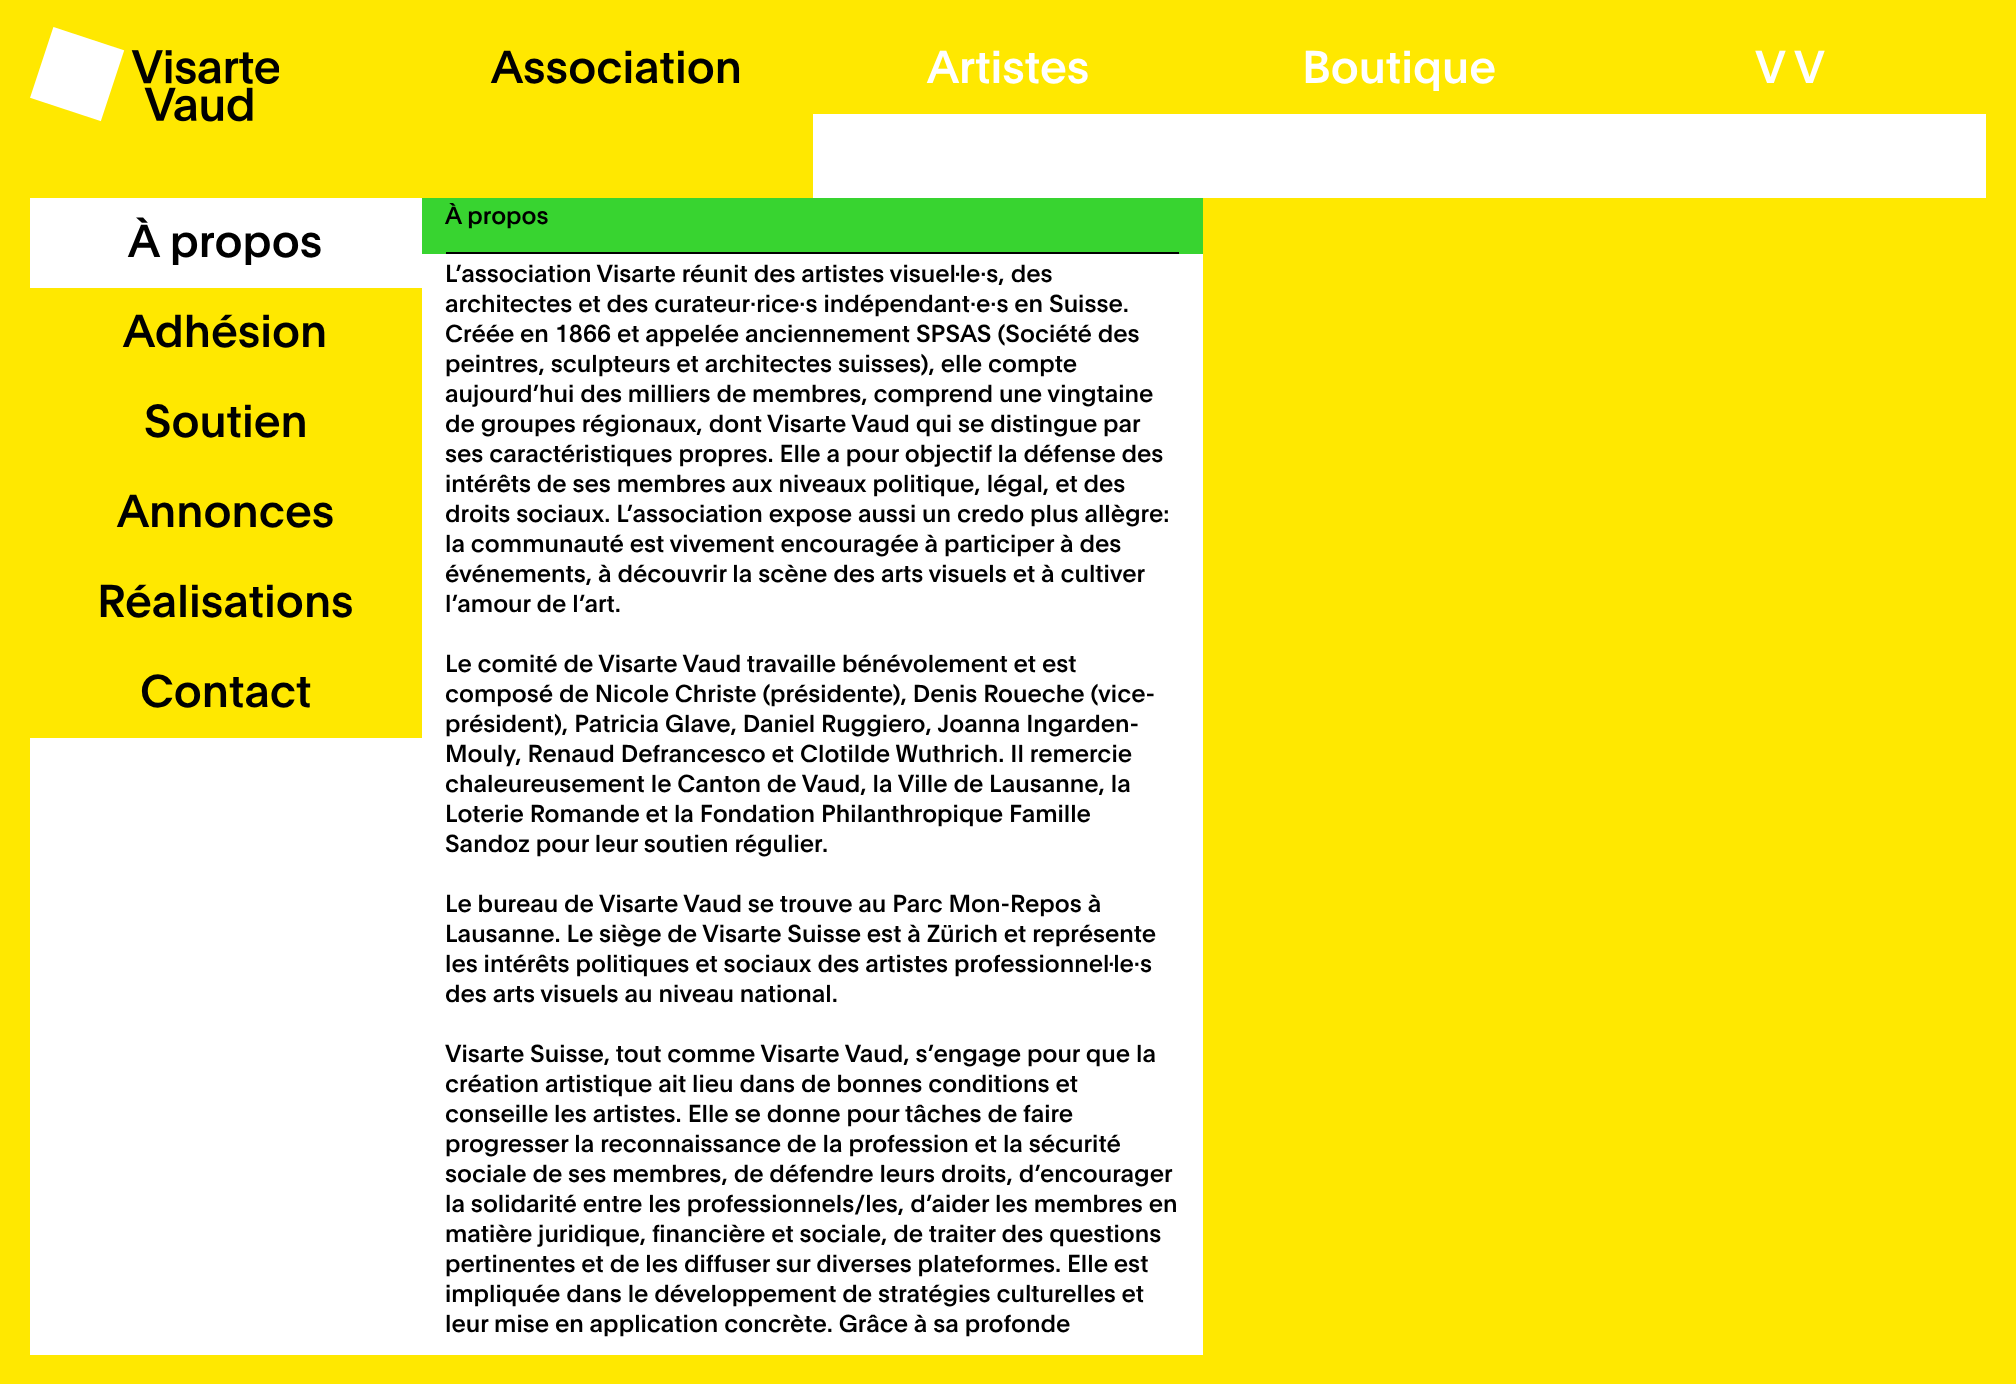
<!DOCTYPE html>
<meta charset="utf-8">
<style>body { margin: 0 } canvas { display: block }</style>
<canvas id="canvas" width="2016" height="1384"></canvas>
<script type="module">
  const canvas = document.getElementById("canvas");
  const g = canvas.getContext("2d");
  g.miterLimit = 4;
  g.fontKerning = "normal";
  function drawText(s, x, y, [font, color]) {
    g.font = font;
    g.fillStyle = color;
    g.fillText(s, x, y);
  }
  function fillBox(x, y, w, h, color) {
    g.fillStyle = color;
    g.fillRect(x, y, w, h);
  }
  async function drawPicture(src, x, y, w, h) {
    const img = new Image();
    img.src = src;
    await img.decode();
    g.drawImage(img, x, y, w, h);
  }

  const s1 = ["500 45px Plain", "#000000"];
  const s2 = ["500 45px Plain", "#FFFFFF"];
  const s3 = ["500 24px Plain", "#000000"];

  fillBox(0, 0, 2016, 1384, "#FFE800");
  await drawPicture("pic1.png", 30, 27, 249, 95);
  drawText("Association", 491, 83, s1);
  fillBox(813, 114, 1173, 84, "#FFFFFF");
  drawText("Artistes", 927, 83, s2);
  drawText("Boutique", 1302, 83, s2);
  drawText("V V", 1755, 83, s2);
  fillBox(30, 198, 392, 1157, "#FFFFFF");
  drawText("À propos", 128, 257, s1);
  fillBox(30, 288, 392, 450, "#FFE800");
  drawText("Adhésion", 123, 347, s1);
  drawText("Soutien", 144, 437, s1);
  drawText("Annonces", 117, 527, s1);
  drawText("Réalisations", 97, 617, s1);
  drawText("Contact", 140, 707, s1);
  fillBox(422, 254, 781, 1101, "#FFFFFF");
  fillBox(422, 198, 781, 56, "#38D430");
  fillBox(446, 252, 733, 2, "#000000");
  drawText("À propos", 445, 224, s3);
  drawText("L’association Visarte réunit des artistes visuel·le·s, des", 445, 282, s3);
  drawText("architectes et des curateur·rice·s indépendant·e·s en Suisse.", 445, 312, s3);
  drawText("Créée en 1866 et appelée anciennement SPSAS (Société des", 445, 342, s3);
  drawText("peintres, sculpteurs et architectes suisses), elle compte", 445, 372, s3);
  drawText("aujourd’hui des milliers de membres, comprend une vingtaine", 445, 402, s3);
  drawText("de groupes régionaux, dont Visarte Vaud qui se distingue par", 445, 432, s3);
  drawText("ses caractéristiques propres. Elle a pour objectif la défense des", 445, 462, s3);
  drawText("intérêts de ses membres aux niveaux politique, légal, et des", 445, 492, s3);
  drawText("droits sociaux. L’association expose aussi un credo plus allègre:", 445, 522, s3);
  drawText("la communauté est vivement encouragée à participer à des", 445, 552, s3);
  drawText("événements, à découvrir la scène des arts visuels et à cultiver", 445, 582, s3);
  drawText("l’amour de l’art.", 445, 612, s3);
  drawText("Le comité de Visarte Vaud travaille bénévolement et est", 445, 672, s3);
  drawText("composé de Nicole Christe (présidente), Denis Roueche (vice-", 445, 702, s3);
  drawText("président), Patricia Glave, Daniel Ruggiero, Joanna Ingarden-", 445, 732, s3);
  drawText("Mouly, Renaud Defrancesco et Clotilde Wuthrich. Il remercie", 445, 762, s3);
  drawText("chaleureusement le Canton de Vaud, la Ville de Lausanne, la", 445, 792, s3);
  drawText("Loterie Romande et la Fondation Philanthropique Famille", 445, 822, s3);
  drawText("Sandoz pour leur soutien régulier.", 445, 852, s3);
  drawText("Le bureau de Visarte Vaud se trouve au Parc Mon-Repos à", 445, 912, s3);
  drawText("Lausanne. Le siège de Visarte Suisse est à Zürich et représente", 445, 942, s3);
  drawText("les intérêts politiques et sociaux des artistes professionnel·le·s", 445, 972, s3);
  drawText("des arts visuels au niveau national.", 445, 1002, s3);
  drawText("Visarte Suisse, tout comme Visarte Vaud, s’engage pour que la", 445, 1062, s3);
  drawText("création artistique ait lieu dans de bonnes conditions et", 445, 1092, s3);
  drawText("conseille les artistes. Elle se donne pour tâches de faire", 445, 1122, s3);
  drawText("progresser la reconnaissance de la profession et la sécurité", 445, 1152, s3);
  drawText("sociale de ses membres, de défendre leurs droits, d’encourager", 445, 1182, s3);
  drawText("la solidarité entre les professionnels/les, d’aider les membres en", 445, 1212, s3);
  drawText("matière juridique, financière et sociale, de traiter des questions", 445, 1242, s3);
  drawText("pertinentes et de les diffuser sur diverses plateformes. Elle est", 445, 1272, s3);
  drawText("impliquée dans le développement de stratégies culturelles et", 445, 1302, s3);
  drawText("leur mise en application concrète. Grâce à sa profonde", 445, 1332, s3);
</script>
